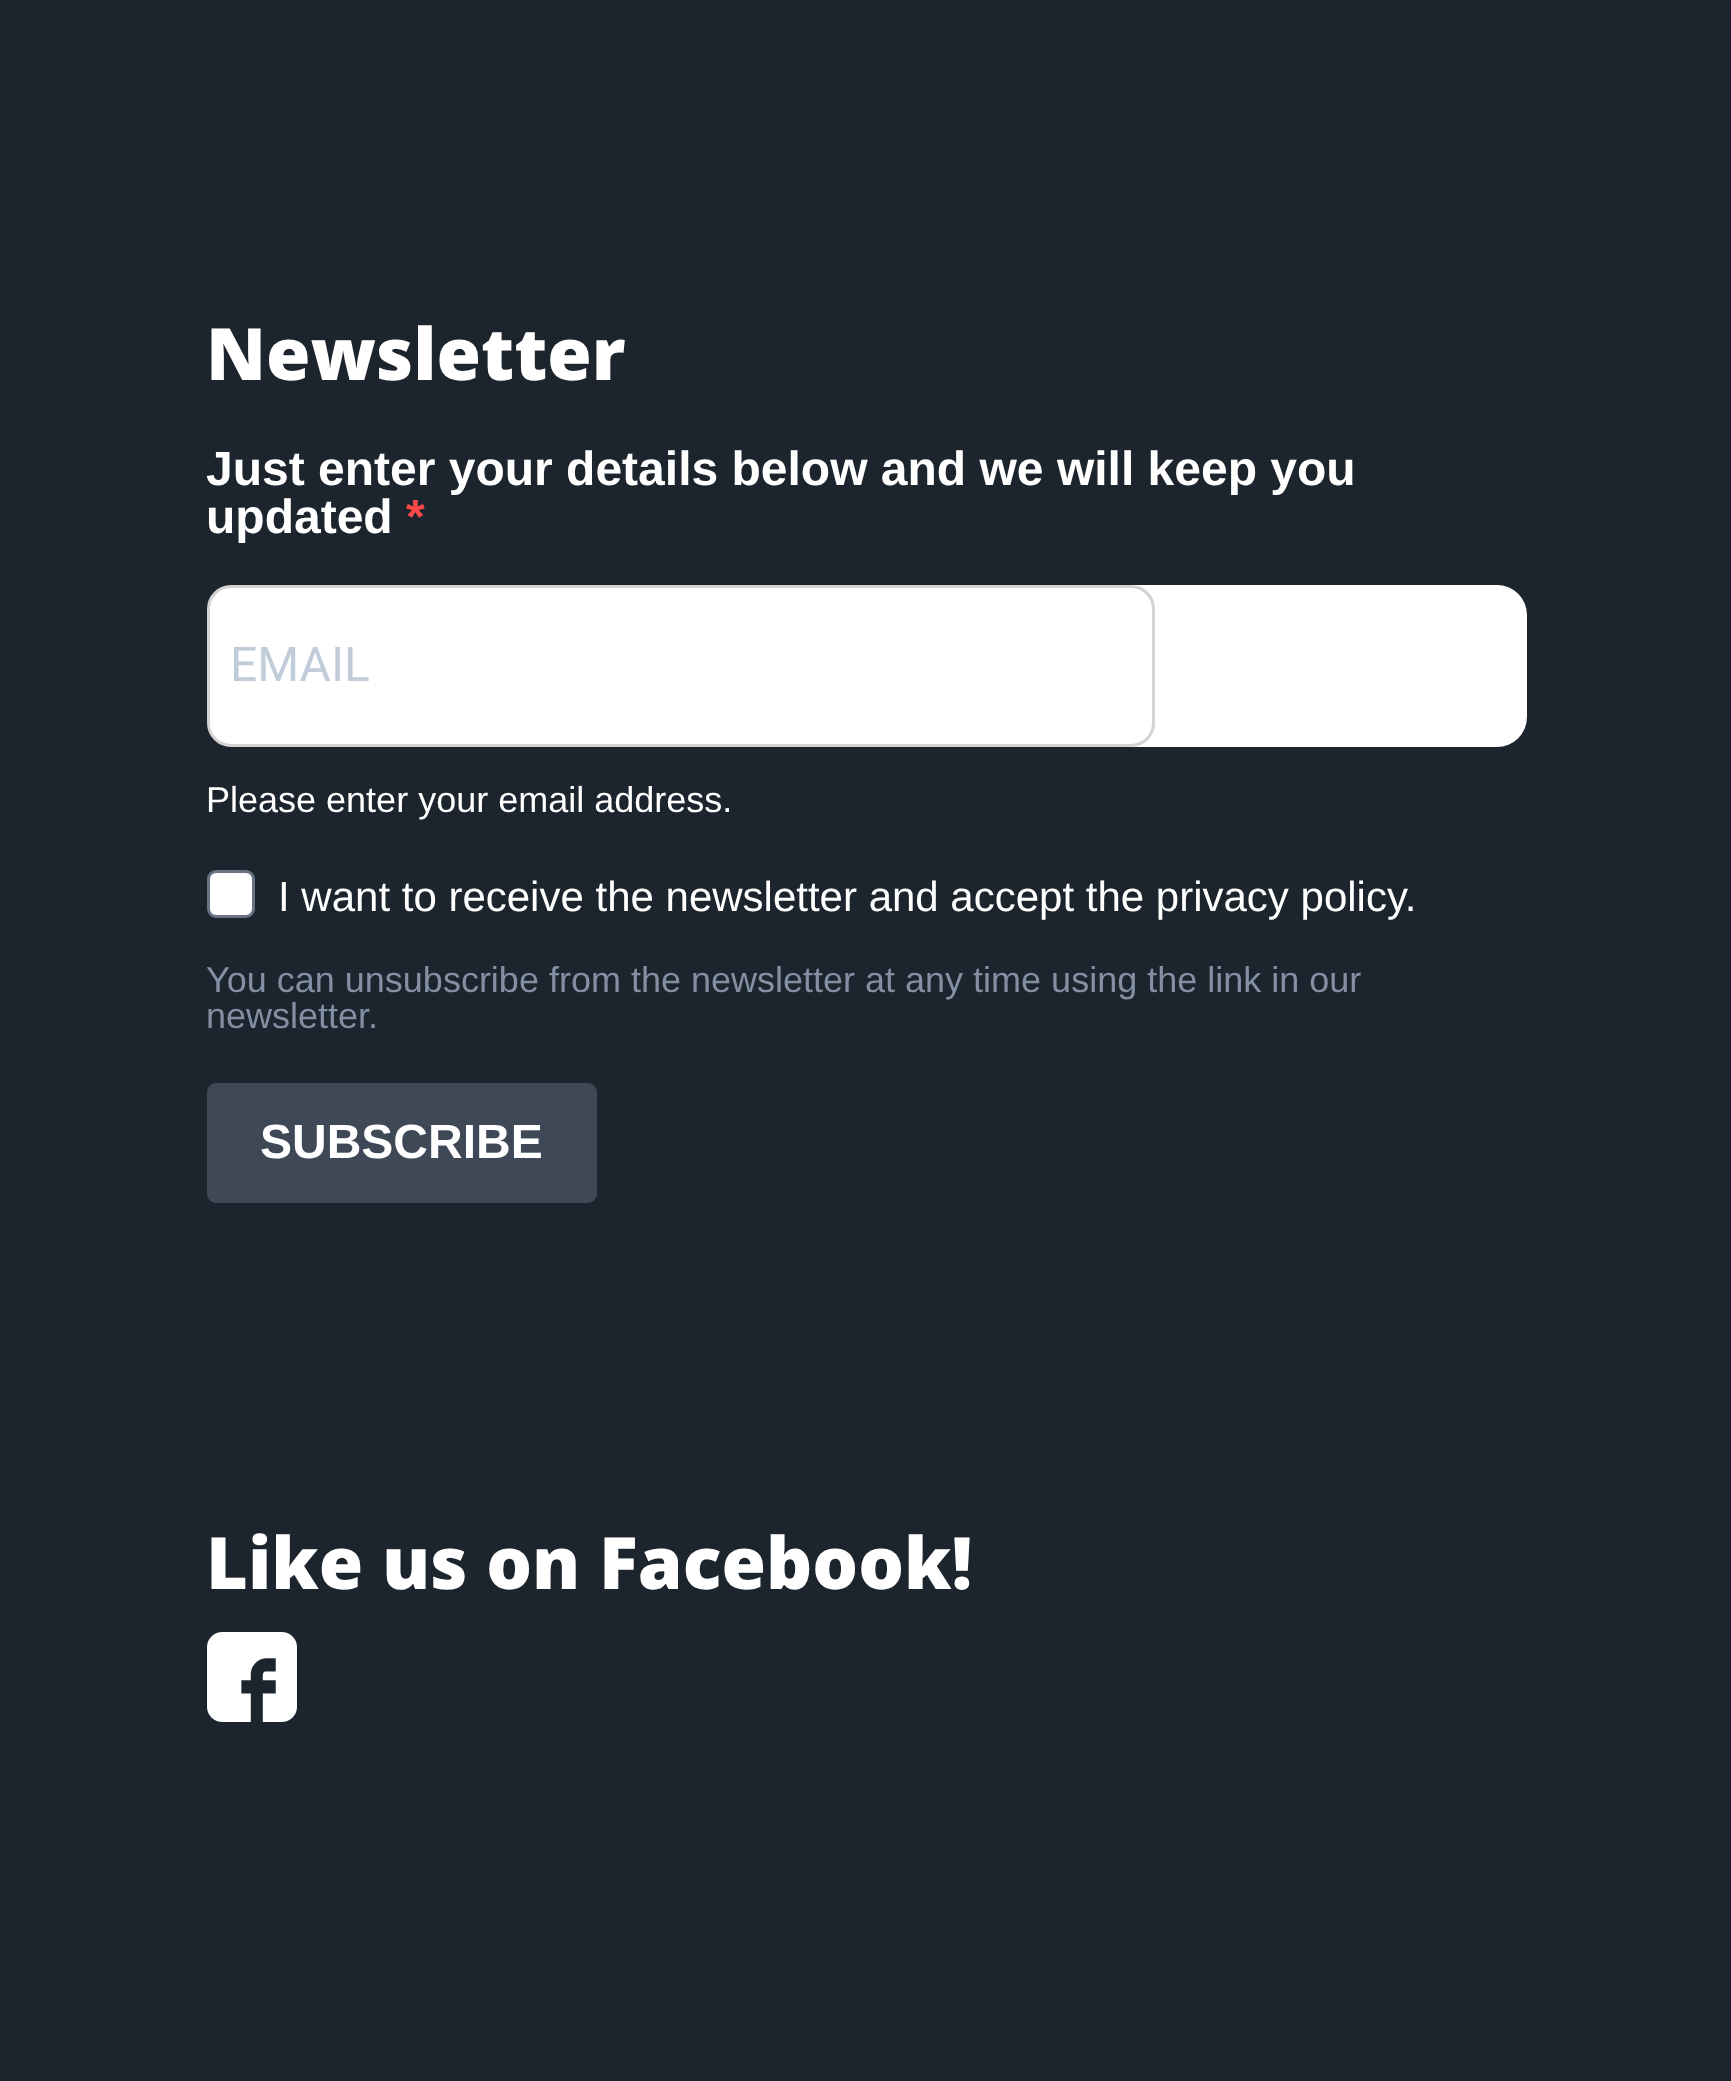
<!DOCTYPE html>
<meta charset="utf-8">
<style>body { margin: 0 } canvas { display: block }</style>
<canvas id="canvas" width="1731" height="2081"></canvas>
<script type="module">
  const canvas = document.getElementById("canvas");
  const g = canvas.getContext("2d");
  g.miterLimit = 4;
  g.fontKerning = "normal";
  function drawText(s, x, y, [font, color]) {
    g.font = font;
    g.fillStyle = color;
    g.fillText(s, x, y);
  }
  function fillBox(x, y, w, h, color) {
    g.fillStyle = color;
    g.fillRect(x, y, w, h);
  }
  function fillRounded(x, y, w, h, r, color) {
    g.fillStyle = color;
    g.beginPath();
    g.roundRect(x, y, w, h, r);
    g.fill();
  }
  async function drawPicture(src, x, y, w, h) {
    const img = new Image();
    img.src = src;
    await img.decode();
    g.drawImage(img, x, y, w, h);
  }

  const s1 = ["800 72px Open Sans", "#FFFFFF"];
  const s2 = ["bold 48px Liberation Sans", "#FFFFFF"];
  const s3 = ["bold 48px Liberation Sans", "#FF4949"];
  const s4 = ["48px Roboto", "#C0CCDA"];
  const s5 = ["36px Liberation Sans", "#FFFFFF"];
  const s6 = ["42px Liberation Sans", "#FFFFFF"];
  const s7 = ["36px Liberation Sans", "#8390A4"];

  fillBox(0, 0, 1731, 2081, "#1C242D");
  drawText("Newsletter", 206, 380, s1);
  drawText("Just enter your details below and we will keep you", 206, 485, s2);
  drawText("updated", 206, 533, s2);
  drawText("*", 406, 533, s3);
  fillRounded(207, 585, 1320, 162, 30, "#FFFFFF");
  g.beginPath();
  g.roundRect(208.5, 586.5, 945, 159, 22.5);
  g.strokeStyle = "#D4D2D2";
  g.lineWidth = 3;
  g.stroke();
  drawText("EMAIL", 230, 681, s4);
  drawText("Please enter your email address.", 206, 812, s5);
  g.beginPath();
  g.roundRect(208.5, 871.5, 45, 45, 7.5);
  g.fill();
  g.strokeStyle = "#687484";
  g.stroke();
  drawText("I want to receive the newsletter and accept the privacy policy.", 278, 911, s6);
  drawText("You can unsubscribe from the newsletter at any time using the link in our", 206, 992, s7);
  drawText("newsletter.", 206, 1028, s7);
  fillRounded(207, 1083, 390, 120, 9, "#3E4857");
  drawText("SUBSCRIBE", 260, 1158, s2);
  drawText("Like us on Facebook!", 206, 1589, s1);
  await drawPicture("pic1.png", 207, 1632, 90, 90);
</script>
